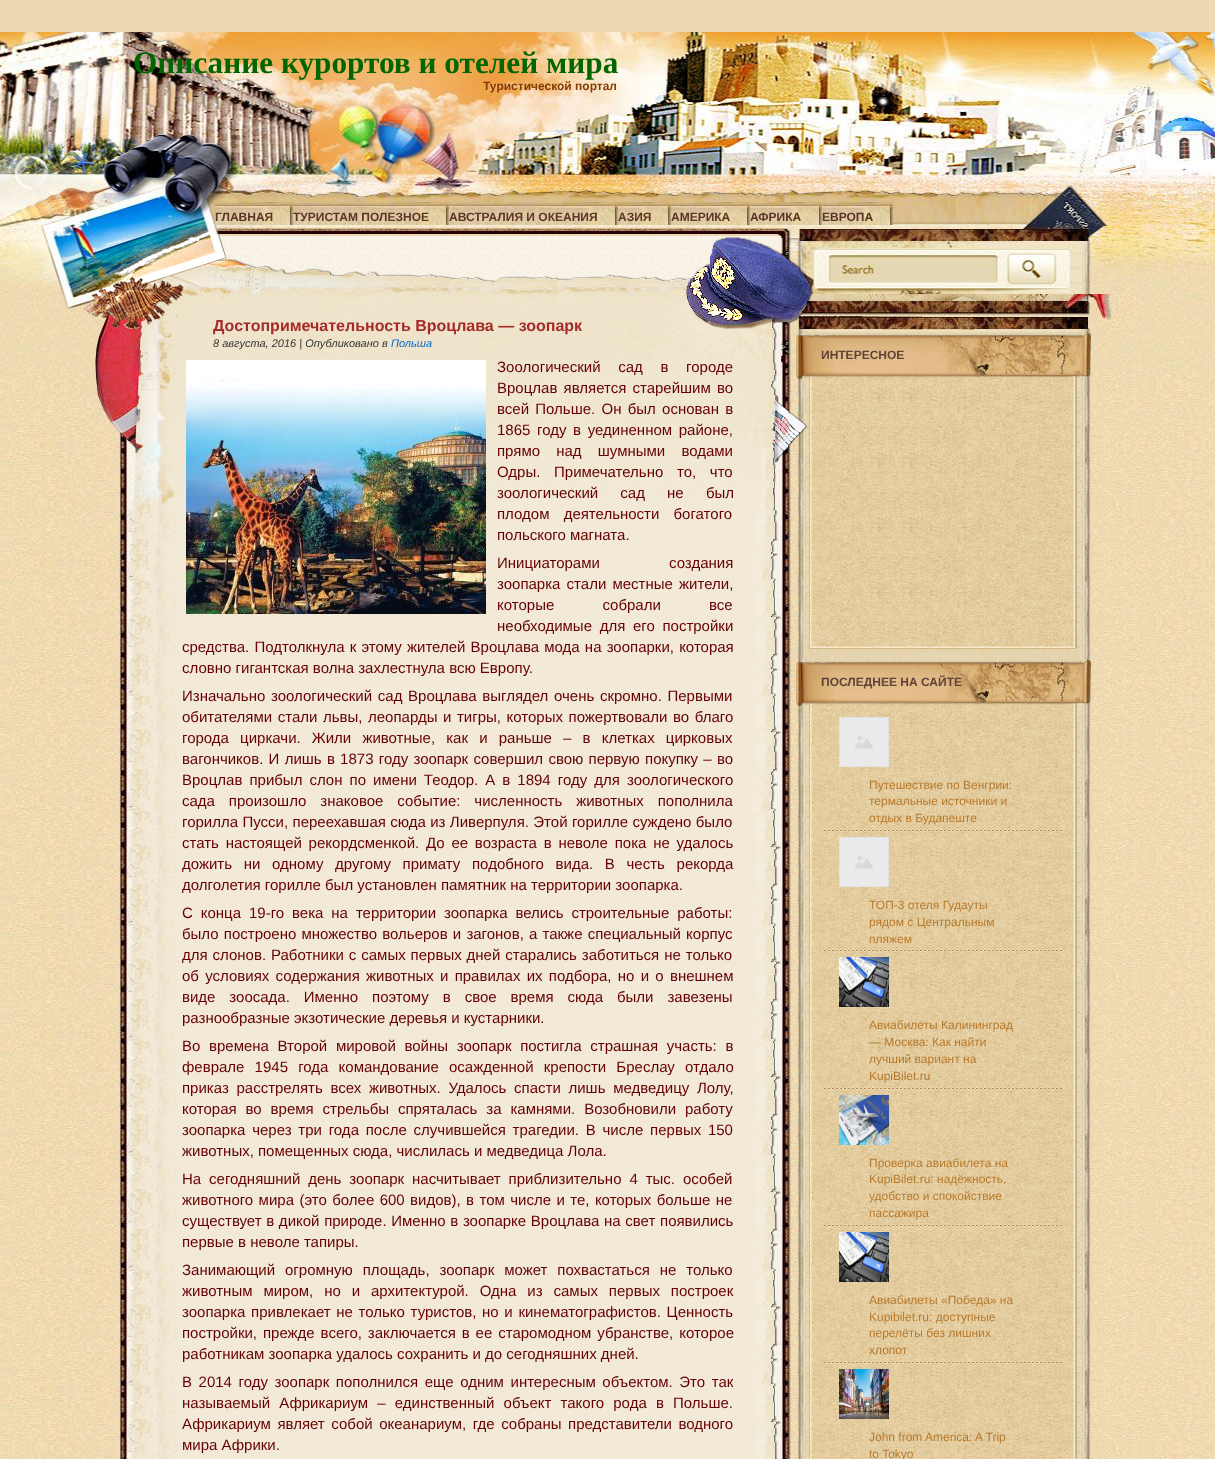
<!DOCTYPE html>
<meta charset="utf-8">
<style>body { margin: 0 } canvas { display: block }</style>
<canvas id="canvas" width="1215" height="1459"></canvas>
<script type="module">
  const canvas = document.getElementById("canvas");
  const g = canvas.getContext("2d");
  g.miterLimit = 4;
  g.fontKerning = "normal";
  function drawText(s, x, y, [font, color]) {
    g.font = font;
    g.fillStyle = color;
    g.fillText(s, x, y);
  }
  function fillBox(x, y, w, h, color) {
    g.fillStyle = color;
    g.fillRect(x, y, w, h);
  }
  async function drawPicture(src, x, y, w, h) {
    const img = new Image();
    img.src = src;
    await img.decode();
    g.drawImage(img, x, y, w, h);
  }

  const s1 = ["bold 31.25px Liberation Serif", "#006600"];
  const s2 = ["bold 12px Liberation Sans", "#823A00"];
  const s3 = ["bold 12px Liberation Sans", "#5E3425"];
  const s4 = ["bold 16px Liberation Sans", "#A52A2A"];
  const s5 = ["italic 11px Liberation Sans", "#333333"];
  const s6 = ["italic 11px Liberation Sans", "#0066CC"];
  const s7 = ["15px Liberation Sans", "#660000"];
  const s8 = ["bold 12px Liberation Sans", "#5E4337"];
  const s9 = ["12px Liberation Sans", "#B87A2D"];

  fillBox(0, 0, 1215, 1459, "#ECD9B1");
  await drawPicture("pic1.png", 0, 373, 1215, 1086);
  await drawPicture("pic2.png", 0, 32, 1215, 341);
  drawText("Описание курортов и отелей мира", 133, 73, s1);
  drawText("Туристической портал", 483, 90, s2);
  await drawPicture("pic3.png", 215, 202, 78, 23);
  drawText("ГЛАВНАЯ", 215, 221, s3);
  await drawPicture("pic4.png", 293, 202, 156, 23);
  drawText("ТУРИСТАМ ПОЛЕЗНОЕ", 293, 221, s3);
  await drawPicture("pic5.png", 449, 202, 169, 23);
  drawText("АВСТРАЛИЯ И ОКЕАНИЯ", 449, 221, s3);
  await drawPicture("pic6.png", 618, 202, 53, 23);
  drawText("АЗИЯ", 618, 221, s3);
  await drawPicture("pic7.png", 671, 202, 79, 23);
  drawText("АМЕРИКА", 671, 221, s3);
  await drawPicture("pic8.png", 750, 202, 72, 23);
  drawText("АФРИКА", 750, 221, s3);
  await drawPicture("pic9.png", 822, 202, 71, 23);
  drawText("ЕВРОПА", 822, 221, s3);
  await drawPicture("pic10.png", 127, 510, 654, 949);
  await drawPicture("pic12.png", 95, 236, 694, 274);
  drawText("Достопримечательность Вроцлава — зоопарк", 213, 331, s4);
  await drawPicture("pic11.png", 96, 235, 131, 94);
  drawText("8 августа, 2016 | Опубликовано в", 213, 347, s5);
  drawText("Польша", 391, 347, s6);
  await drawPicture("pic13.png", 186, 360, 300, 254);
  g.wordSpacing = "13.5px";
  drawText("Зоологический сад в городе", 497, 372, s7);
  g.wordSpacing = "2px";
  drawText("Вроцлав является старейшим во", 497, 393, s7);
  g.wordSpacing = "2.1px";
  drawText("всей Польше. Он был основан в", 497, 414, s7);
  g.wordSpacing = "2.5px";
  drawText("1865 году в уединенном районе,", 497, 435, s7);
  g.wordSpacing = "12px";
  drawText("прямо над шумными водами", 497, 456, s7);
  g.wordSpacing = "9.5px";
  drawText("Одры. Примечательно то, что", 497, 477, s7);
  g.wordSpacing = "18px";
  drawText("зоологический сад не был", 497, 498, s7);
  g.wordSpacing = "10px";
  drawText("плодом деятельности богатого", 497, 519, s7);
  g.wordSpacing = "0px";
  drawText("польского магната.", 497, 540, s7);
  g.wordSpacing = "65px";
  drawText("Инициаторами создания", 497, 568, s7);
  g.wordSpacing = "2px";
  drawText("зоопарка стали местные жители,", 497, 589, s7);
  g.wordSpacing = "44px";
  drawText("которые собрали все", 497, 610, s7);
  g.wordSpacing = "3.5px";
  drawText("необходимые для его постройки", 497, 631, s7);
  g.wordSpacing = "1px";
  drawText("средства. Подтолкнула к этому жителей Вроцлава мода на зоопарки, которая", 182, 652, s7);
  g.wordSpacing = "0px";
  drawText("словно гигантская волна захлестнула всю Европу.", 182, 673, s7);
  g.wordSpacing = "1.5px";
  drawText("Изначально зоологический сад Вроцлава выглядел очень скромно. Первыми", 182, 701, s7);
  g.wordSpacing = "1.4px";
  drawText("обитателями стали львы, леопарды и тигры, которых пожертвовали во благо", 182, 722, s7);
  g.wordSpacing = "7px";
  drawText("города циркачи. Жили животные, как и раньше – в клетках цирковых", 182, 743, s7);
  g.wordSpacing = "1.1px";
  drawText("вагончиков. И лишь в 1873 году зоопарк совершил свою первую покупку – во", 182, 764, s7);
  g.wordSpacing = "2.9px";
  drawText("Вроцлав прибыл слон по имени Теодор. А в 1894 году для зоологического", 182, 785, s7);
  g.wordSpacing = "9.75px";
  drawText("сада произошло знаковое событие: численность животных пополнила", 182, 806, s7);
  g.wordSpacing = "0.25px";
  drawText("горилла Пусси, переехавшая сюда из Ливерпуля. Этой горилле суждено было", 182, 827, s7);
  g.wordSpacing = "2.6px";
  drawText("стать настоящей рекордсменкой. До ее возраста в неволе пока не удалось", 182, 848, s7);
  g.wordSpacing = "7.5px";
  drawText("дожить ни одному другому примату подобного вида. В честь рекорда", 182, 869, s7);
  g.wordSpacing = "0px";
  drawText("долголетия горилле был установлен памятник на территории зоопарка.", 182, 890, s7);
  g.wordSpacing = "3.75px";
  drawText("С конца 19-го века на территории зоопарка велись строительные работы:", 182, 918, s7);
  g.wordSpacing = "1px";
  drawText("было построено множество вольеров и загонов, а также специальный корпус", 182, 939, s7);
  g.wordSpacing = "0.75px";
  drawText("для слонов. Работники с самых первых дней старались заботиться не только", 182, 960, s7);
  g.wordSpacing = "2.1px";
  drawText("об условиях содержания животных и правилах их подбора, но и о внешнем", 182, 981, s7);
  g.wordSpacing = "9.75px";
  drawText("виде зоосада. Именно поэтому в свое время сюда были завезены", 182, 1002, s7);
  g.wordSpacing = "0px";
  drawText("разнообразные экзотические деревья и кустарники.", 182, 1023, s7);
  g.wordSpacing = "4.5px";
  drawText("Во времена Второй мировой войны зоопарк постигла страшная участь: в", 182, 1051, s7);
  g.wordSpacing = "6px";
  drawText("феврале 1945 года командование осажденной крепости Бреслау отдало", 182, 1072, s7);
  g.wordSpacing = "3.5px";
  drawText("приказ расстрелять всех животных. Удалось спасти лишь медведицу Лолу,", 182, 1093, s7);
  g.wordSpacing = "4.75px";
  drawText("которая во время стрельбы спряталась за камнями. Возобновили работу", 182, 1114, s7);
  g.wordSpacing = "2.6px";
  drawText("зоопарка через три года после случившейся трагедии. В числе первых 150", 182, 1135, s7);
  g.wordSpacing = "0px";
  drawText("животных, помещенных сюда, числилась и медведица Лола.", 182, 1156, s7);
  g.wordSpacing = "3.75px";
  drawText("На сегодняшний день зоопарк насчитывает приблизительно 4 тыс. особей", 182, 1184, s7);
  g.wordSpacing = "1.25px";
  drawText("животного мира (это более 600 видов), в том числе и те, которых больше не", 182, 1205, s7);
  g.wordSpacing = "0.5px";
  drawText("существует в дикой природе. Именно в зоопарке Вроцлава на свет появились", 182, 1226, s7);
  g.wordSpacing = "0px";
  drawText("первые в неволе тапиры.", 182, 1247, s7);
  g.wordSpacing = "5.75px";
  drawText("Занимающий огромную площадь, зоопарк может похвастаться не только", 182, 1275, s7);
  g.wordSpacing = "6.75px";
  drawText("животным миром, но и архитектурой. Одна из самых первых построек", 182, 1296, s7);
  g.wordSpacing = "1.5px";
  drawText("зоопарка привлекает не только туристов, но и кинематографистов. Ценность", 182, 1317, s7);
  g.wordSpacing = "1.75px";
  drawText("постройки, прежде всего, заключается в ее старомодном убранстве, которое", 182, 1338, s7);
  g.wordSpacing = "0px";
  drawText("работникам зоопарка удалось сохранить и до сегодняшних дней.", 182, 1359, s7);
  g.wordSpacing = "2.4px";
  drawText("В 2014 году зоопарк пополнился еще одним интересным объектом. Это так", 182, 1387, s7);
  g.wordSpacing = "5px";
  drawText("называемый Африкариум – единственный объект такого рода в Польше.", 182, 1408, s7);
  g.wordSpacing = "2.4px";
  drawText("Африкариум являет собой океанариум, где собраны представители водного", 182, 1429, s7);
  g.wordSpacing = "0px";
  drawText("мира Африки.", 182, 1450, s7);
  await drawPicture("pic15.png", 799, 294, 341, 35);
  await drawPicture("pic16.png", 806, 332, 274, 1127);
  await drawPicture("pic18.png", 796, 332, 295, 47);
  await drawPicture("pic14.png", 788, 236, 25, 212);
  await drawPicture("pic17.png", 807, 635, 273, 24);
  drawText("ИНТЕРЕСНОЕ", 821, 359, s8);
  await drawPicture("pic19.png", 796, 659, 295, 47);
  drawText("ПОСЛЕДНЕЕ НА САЙТЕ", 821, 686, s8);
  await drawPicture("pic20.png", 824, 829, 239, 3);
  await drawPicture("pic21.png", 839, 717, 50, 50);
  drawText("Путешествие по Венгрии:", 869, 789, s9);
  drawText("термальные источники и", 869, 805, s9);
  drawText("отдых в Будапеште", 869, 822, s9);
  await drawPicture("pic20.png", 824, 949, 239, 3);
  await drawPicture("pic21.png", 839, 837, 50, 50);
  drawText("ТОП-3 отеля Гудауты", 869, 909, s9);
  drawText("рядом с Центральным", 869, 926, s9);
  drawText("пляжем", 869, 943, s9);
  await drawPicture("pic20.png", 824, 1087, 239, 3);
  await drawPicture("pic22.png", 839, 957, 50, 50);
  drawText("Авиабилеты Калининград", 869, 1029, s9);
  drawText("— Москва: Как найти", 869, 1046, s9);
  drawText("лучший вариант на", 869, 1063, s9);
  drawText("KupiBilet.ru", 869, 1080, s9);
  await drawPicture("pic20.png", 824, 1224, 239, 3);
  await drawPicture("pic23.png", 839, 1095, 50, 50);
  drawText("Проверка авиабилета на", 869, 1167, s9);
  drawText("KupiBilet.ru: надёжность,", 869, 1183, s9);
  drawText("удобство и спокойствие", 869, 1200, s9);
  drawText("пассажира", 869, 1217, s9);
  await drawPicture("pic20.png", 824, 1361, 239, 3);
  await drawPicture("pic24.png", 839, 1232, 50, 50);
  drawText("Авиабилеты «Победа» на", 869, 1304, s9);
  drawText("Kupibilet.ru: доступные", 869, 1321, s9);
  drawText("перелёты без лишних", 869, 1337, s9);
  drawText("хлопот", 869, 1354, s9);
  await drawPicture("pic25.png", 839, 1369, 50, 50);
  drawText("John from America: A Trip", 869, 1441, s9);
  drawText("to Tokyo", 869, 1458, s9);
</script>
